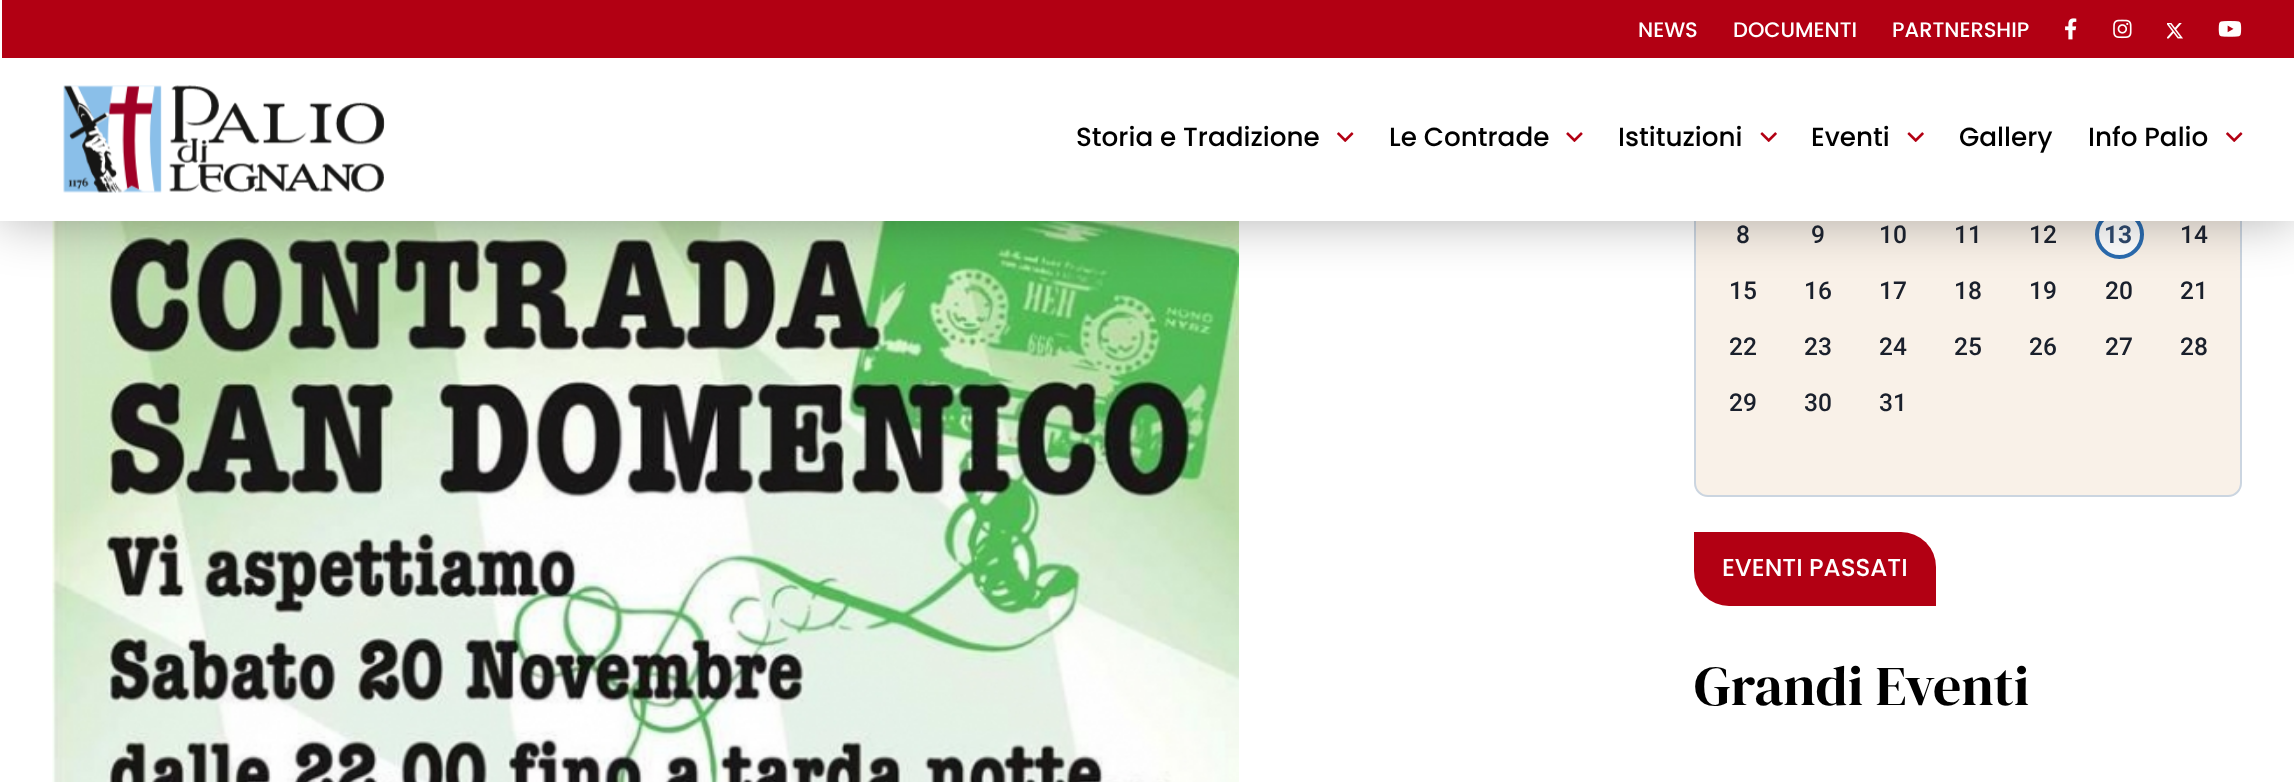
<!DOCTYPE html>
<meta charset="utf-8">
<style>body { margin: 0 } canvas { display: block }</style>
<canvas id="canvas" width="2294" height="782"></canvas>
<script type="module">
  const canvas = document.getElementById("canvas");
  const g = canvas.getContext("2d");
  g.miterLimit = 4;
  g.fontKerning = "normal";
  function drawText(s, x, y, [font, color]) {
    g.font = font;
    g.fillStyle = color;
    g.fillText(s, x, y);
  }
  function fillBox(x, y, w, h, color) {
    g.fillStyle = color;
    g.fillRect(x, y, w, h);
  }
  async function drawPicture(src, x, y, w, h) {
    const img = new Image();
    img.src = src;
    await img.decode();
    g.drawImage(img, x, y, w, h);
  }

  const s1 = ["500 21px Poppins", "#FFFFFF"];
  const s2 = ["500 26.25px Poppins", "#000000"];
  const s3 = ["500 24.5px Roboto", "#1A202C"];
  const s4 = ["bold 24.5px Roboto", "#2A4365"];
  const s5 = ["500 24.5px Poppins", "#FFFFFF"];
  const s6 = ["56px DM Serif Display", "#000000"];

  fillBox(0, 0, 2294, 782, "#FFFFFF");
  await drawPicture("pic9.png", 52, 221, 1187, 561);
  g.fillStyle = "#F9F1E8";
  g.beginPath();
  g.roundRect(1695, 29, 546, 467, 13);
  g.fill();
  g.strokeStyle = "#CBD5E0";
  g.lineWidth = 2;
  g.stroke();
  g.fillStyle = "#FFFFFF";
  g.beginPath();
  g.arc(2119.5, 234.5, 22.5, 0, Math.PI * 2);
  g.fill();
  g.strokeStyle = "#2B6CB0";
  g.lineWidth = 4;
  g.stroke();
  g.fillStyle = "rgba(0, 0, 0, 0.3)";
  g.filter = "blur(26px)";
  g.beginPath();
  g.rect(0, 0, 2294, 221);
  g.fill();
  g.filter = "none";
  fillBox(0, 0, 2294, 221, "#FFFFFF");
  fillBox(2, 0, 2292, 58, "#B20013");
  drawText("NEWS", 1638, 37, s1);
  drawText("DOCUMENTI", 1733, 37, s1);
  drawText("PARTNERSHIP", 1892, 37, s1);
  await drawPicture("pic1.png", 2065, 18, 12, 22);
  await drawPicture("pic2.png", 2113, 19, 19, 20);
  await drawPicture("pic3.png", 2167, 23, 16, 16);
  await drawPicture("pic4.png", 2218, 21, 24, 16);
  await drawPicture("pic5.png", 63, 85, 322, 108);
  drawText("Storia e Tradizione", 1076, 146, s2);
  await drawPicture("pic6.png", 1337, 132, 17, 10);
  drawText("Le Contrade", 1389, 146, s2);
  await drawPicture("pic7.png", 1566, 132, 17, 10);
  drawText("Istituzioni", 1618, 146, s2);
  await drawPicture("pic8.png", 1760, 132, 17, 10);
  drawText("Eventi", 1811, 146, s2);
  await drawPicture("pic8.png", 1907, 132, 17, 10);
  drawText("Gallery", 1959, 146, s2);
  drawText("Info Palio", 2088, 146, s2);
  await drawPicture("pic6.png", 2226, 132, 17, 10);
  drawText("8", 1736, 243, s3);
  drawText("9", 1811, 243, s3);
  drawText("10", 1879, 243, s3);
  drawText("11", 1954, 243, s3);
  drawText("12", 2029, 243, s3);
  drawText("13", 2104, 243, s4);
  drawText("14", 2180, 243, s3);
  drawText("15", 1729, 299, s3);
  drawText("16", 1804, 299, s3);
  drawText("17", 1879, 299, s3);
  drawText("18", 1954, 299, s3);
  drawText("19", 2029, 299, s3);
  drawText("20", 2105, 299, s3);
  drawText("21", 2180, 299, s3);
  drawText("22", 1729, 355, s3);
  drawText("23", 1804, 355, s3);
  drawText("24", 1879, 355, s3);
  drawText("25", 1954, 355, s3);
  drawText("26", 2029, 355, s3);
  drawText("27", 2105, 355, s3);
  drawText("28", 2180, 355, s3);
  drawText("29", 1729, 411, s3);
  drawText("30", 1804, 411, s3);
  drawText("31", 1879, 411, s3);
  g.fillStyle = "#B20013";
  g.beginPath();
  g.roundRect(1694, 532, 242, 74, [0, 35, 0, 35]);
  g.fill();
  drawText("EVENTI PASSATI", 1722, 576, s5);
  drawText("Grandi Eventi", 1694, 705, s6);
</script>
